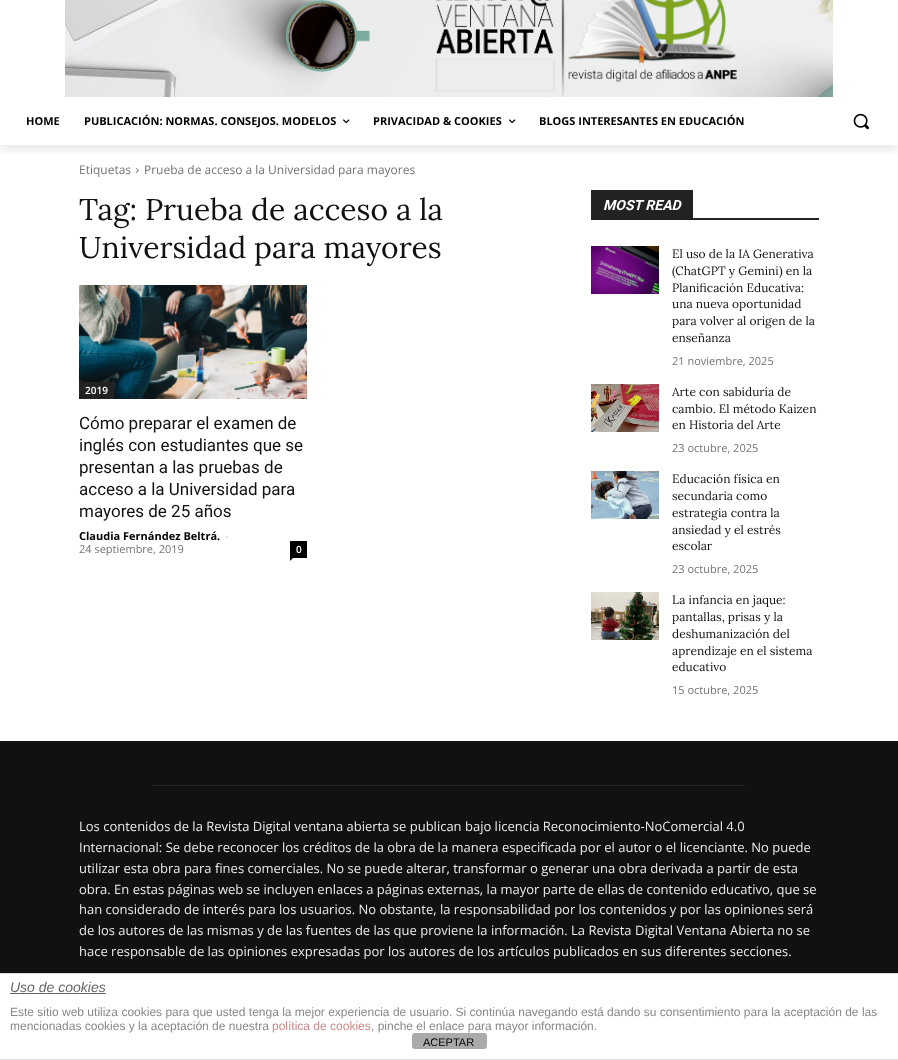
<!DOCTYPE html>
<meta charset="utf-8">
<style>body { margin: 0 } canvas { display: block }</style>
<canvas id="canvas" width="898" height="1060"></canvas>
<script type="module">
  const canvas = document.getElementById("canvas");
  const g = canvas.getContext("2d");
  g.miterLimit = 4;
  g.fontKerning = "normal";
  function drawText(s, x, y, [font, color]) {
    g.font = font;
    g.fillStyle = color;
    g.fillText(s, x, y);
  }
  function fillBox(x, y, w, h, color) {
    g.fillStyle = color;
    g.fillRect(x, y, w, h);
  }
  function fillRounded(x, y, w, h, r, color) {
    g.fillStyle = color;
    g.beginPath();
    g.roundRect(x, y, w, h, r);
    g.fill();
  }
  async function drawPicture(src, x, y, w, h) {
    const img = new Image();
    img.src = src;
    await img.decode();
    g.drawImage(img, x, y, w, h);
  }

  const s1 = ["bold 11px Open Sans", "#000000"];
  const s2 = ["12px Open Sans", "#747474"];
  const s3 = ["30px Lora", "#111111"];
  const s4 = ["600 10px Open Sans", "#FFFFFF"];
  const s5 = ["17px Roboto", "#111111"];
  const s6 = ["11px Open Sans", "#CCCCCC"];
  const s7 = ["11px Open Sans", "#747474"];
  const s8 = ["italic bold 14px Roboto", "#FFFFFF"];
  const s9 = ["12px Lora", "#111111"];
  const s10 = ["13px Open Sans", "#EAEAEA"];
  const s11 = ["italic 14px Liberation Sans", "#666666"];
  const s12 = ["12px Liberation Sans", "#888888"];
  const s13 = ["12px Liberation Sans", "#CC8888"];
  const s14 = ["11px Liberation Sans", "#000000"];

  fillBox(0, 0, 898, 1060, "#FFFFFF");
  await drawPicture("pic1.png", 65, 0, 768, 97);
  g.save();
  g.beginPath();
  g.rect(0, 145, 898, 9);
  g.clip();
  g.fillStyle = "rgba(0, 0, 0, 0.08)";
  g.filter = "blur(4px)";
  g.beginPath();
  g.rect(0, -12, 898, 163);
  g.fill();
  g.filter = "none";
  g.restore();
  drawText("HOME", 26, 125, s1);
  drawText("PUBLICACIÓN: NORMAS. CONSEJOS. MODELOS", 84, 125, s1);
  await drawPicture("pic2.png", 343, 119, 7, 5);
  drawText("PRIVACIDAD & COOKIES", 373, 125, s1);
  await drawPicture("pic2.png", 509, 119, 7, 5);
  drawText("BLOGS INTERESANTES EN EDUCACIÓN", 539, 125, s1);
  await drawPicture("pic3.png", 853, 113, 16, 17);
  drawText("Etiquetas", 79, 174, s2);
  await drawPicture("pic4.png", 136, 168, 3, 5);
  drawText("Prueba de acceso a la Universidad para mayores", 144, 174, s2);
  drawText("Tag: Prueba de acceso a la", 79, 220, s3);
  drawText("Universidad para mayores", 79, 258, s3);
  await drawPicture("pic5.png", 79, 285, 228, 114);
  fillBox(79, 382, 35, 17, "#222222");
  drawText("2019", 85, 394, s4);
  drawText("Cómo preparar el examen de", 79, 429, s5);
  drawText("inglés con estudiantes que se", 79, 451, s5);
  drawText("presentan a las pruebas de", 79, 473, s5);
  drawText("acceso a la Universidad para", 79, 495, s5);
  drawText("mayores de 25 años", 79, 517, s5);
  drawText("Claudia Fernández Beltrá.", 79, 540, s1);
  drawText("-", 225, 540, s6);
  drawText("24 septiembre, 2019", 79, 553, s7);
  fillBox(290, 541, 17, 17, "#000000");
  drawText("0", 296, 553, s4);
  g.fillStyle = "#000000";
  g.beginPath();
  g.moveTo(290, 558);
  g.lineTo(293, 558);
  g.lineTo(290, 561);
  g.closePath();
  g.fill();
  fillBox(591, 218, 228, 2, "#222222");
  fillBox(591, 190, 102, 28, "#222222");
  drawText("MOST READ", 603, 210, s8);
  await drawPicture("pic6.png", 591, 246, 68, 48);
  drawText("El uso de la IA Generativa", 672, 258, s9);
  drawText("(ChatGPT y Gemini) en la", 672, 275, s9);
  drawText("Planificación Educativa:", 672, 292, s9);
  drawText("una nueva oportunidad", 672, 308, s9);
  drawText("para volver al origen de la", 672, 325, s9);
  drawText("enseñanza", 672, 342, s9);
  drawText("21 noviembre, 2025", 672, 365, s7);
  await drawPicture("pic7.png", 591, 384, 68, 48);
  drawText("Arte con sabiduría de", 672, 396, s9);
  drawText("cambio. El método Kaizen", 672, 413, s9);
  drawText("en Historia del Arte", 672, 429, s9);
  drawText("23 octubre, 2025", 672, 452, s7);
  await drawPicture("pic8.png", 591, 471, 68, 48);
  drawText("Educación física en", 672, 483, s9);
  drawText("secundaria como", 672, 500, s9);
  drawText("estrategia contra la", 672, 517, s9);
  drawText("ansiedad y el estrés", 672, 534, s9);
  drawText("escolar", 672, 550, s9);
  drawText("23 octubre, 2025", 672, 573, s7);
  await drawPicture("pic9.png", 591, 592, 68, 48);
  drawText("La infancia en jaque:", 672, 604, s9);
  drawText("pantallas, prisas y la", 672, 621, s9);
  drawText("deshumanización del", 672, 638, s9);
  drawText("aprendizaje en el sistema", 672, 655, s9);
  drawText("educativo", 672, 671, s9);
  drawText("15 octubre, 2025", 672, 694, s7);
  fillBox(0, 741, 898, 232, "#111111");
  fillBox(153, 785, 592, 1, "#292929");
  drawText("Los contenidos de la Revista Digital ventana abierta se publican bajo licencia Reconocimiento-NoComercial 4.0", 79, 831, s10);
  drawText("Internacional: Se debe reconocer los créditos de la obra de la manera especificada por el autor o el licenciante. No puede", 79, 852, s10);
  drawText("utilizar esta obra para fines comerciales. No se puede alterar, transformar o generar una obra derivada a partir de esta", 79, 873, s10);
  drawText("obra. En estas páginas web se incluyen enlaces a páginas externas, la mayor parte de ellas de contenido educativo, que se", 79, 894, s10);
  drawText("han considerado de interés para los usuarios. No obstante, la responsabilidad por los contenidos y por las opiniones será", 79, 914, s10);
  drawText("de los autores de las mismas y de las fuentes de las que proviene la información. La Revista Digital Ventana Abierta no se", 79, 935, s10);
  drawText("hace responsable de las opiniones expresadas por los autores de los artículos publicados en sus diferentes secciones.", 79, 956, s10);
  fillBox(0, 973, 898, 1, "#DDDDDD");
  fillBox(0, 1059, 898, 1, "#DDDDDD");
  drawText("Uso de cookies", 10, 992, s11);
  fillBox(10, 993, 96, 1, "#666666");
  drawText("Este sitio web utiliza cookies para que usted tenga la mejor experiencia de usuario. Si continúa navegando está dando su consentimiento para la aceptación de las", 10, 1016, s12);
  drawText("mencionadas cookies y la aceptación de nuestra", 10, 1030, s12);
  drawText("política de cookies", 272, 1030, s13);
  drawText(", pinche el enlace para mayor información.", 371, 1030, s12);
  fillRounded(412, 1033, 75, 16, 3, "#AAAAAA");
  drawText("ACEPTAR", 423, 1046, s14);
</script>
